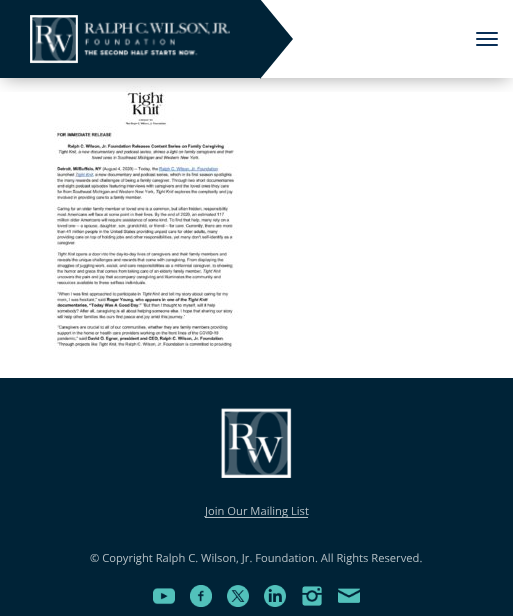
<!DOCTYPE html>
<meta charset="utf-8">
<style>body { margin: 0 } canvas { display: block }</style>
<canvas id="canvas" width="513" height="616"></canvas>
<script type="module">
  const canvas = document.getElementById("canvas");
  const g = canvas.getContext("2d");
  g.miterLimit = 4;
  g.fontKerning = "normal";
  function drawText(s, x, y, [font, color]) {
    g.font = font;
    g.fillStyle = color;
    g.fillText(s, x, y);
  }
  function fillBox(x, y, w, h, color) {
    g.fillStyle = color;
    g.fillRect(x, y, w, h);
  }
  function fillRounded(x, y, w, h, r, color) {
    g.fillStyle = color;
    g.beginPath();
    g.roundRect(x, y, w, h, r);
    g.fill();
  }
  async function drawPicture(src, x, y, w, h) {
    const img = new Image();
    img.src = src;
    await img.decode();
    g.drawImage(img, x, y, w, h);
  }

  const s1 = ["11.2px Open Sans", "#B3BEC3"];

  fillBox(0, 0, 513, 616, "#FFFFFF");
  await drawPicture("pic2.png", 54, 86, 184, 264);
  g.save();
  g.beginPath();
  g.rect(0, 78, 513, 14);
  g.clip();
  g.fillStyle = "rgba(0, 0, 0, 0.36)";
  g.filter = "blur(9px)";
  g.beginPath();
  g.rect(4, 8, 505, 70);
  g.fill();
  g.filter = "none";
  g.restore();
  fillBox(0, 0, 260, 78, "#002337");
  await drawPicture("pic1.png", 30, 15, 200, 49);
  g.beginPath();
  g.moveTo(260, 79);
  g.lineTo(260, -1);
  g.lineTo(293, 39);
  g.closePath();
  g.fill();
  fillRounded(476, 32, 22, 2, 1, "#092F57");
  fillRounded(476, 38, 22, 2, 1, "#092F57");
  fillRounded(476, 44, 22, 2, 1, "#092F57");
  fillBox(0, 378, 513, 238, "#002337");
  await drawPicture("pic3.png", 221, 408, 71, 70);
  fillBox(205, 517, 103, 1, "#B3BDC3");
  drawText("Join Our Mailing List", 205, 515, s1);
  drawText("© Copyright Ralph C. Wilson, Jr. Foundation. All Rights Reserved.", 90, 562, s1);
  await drawPicture("pic4.png", 153, 588, 22, 17);
  await drawPicture("pic5.png", 190, 585, 22, 22);
  await drawPicture("pic6.png", 227, 585, 22, 22);
  await drawPicture("pic7.png", 264, 585, 22, 22);
  await drawPicture("pic8.png", 302, 586, 20, 20);
  await drawPicture("pic9.png", 338, 588, 22, 15);
</script>
